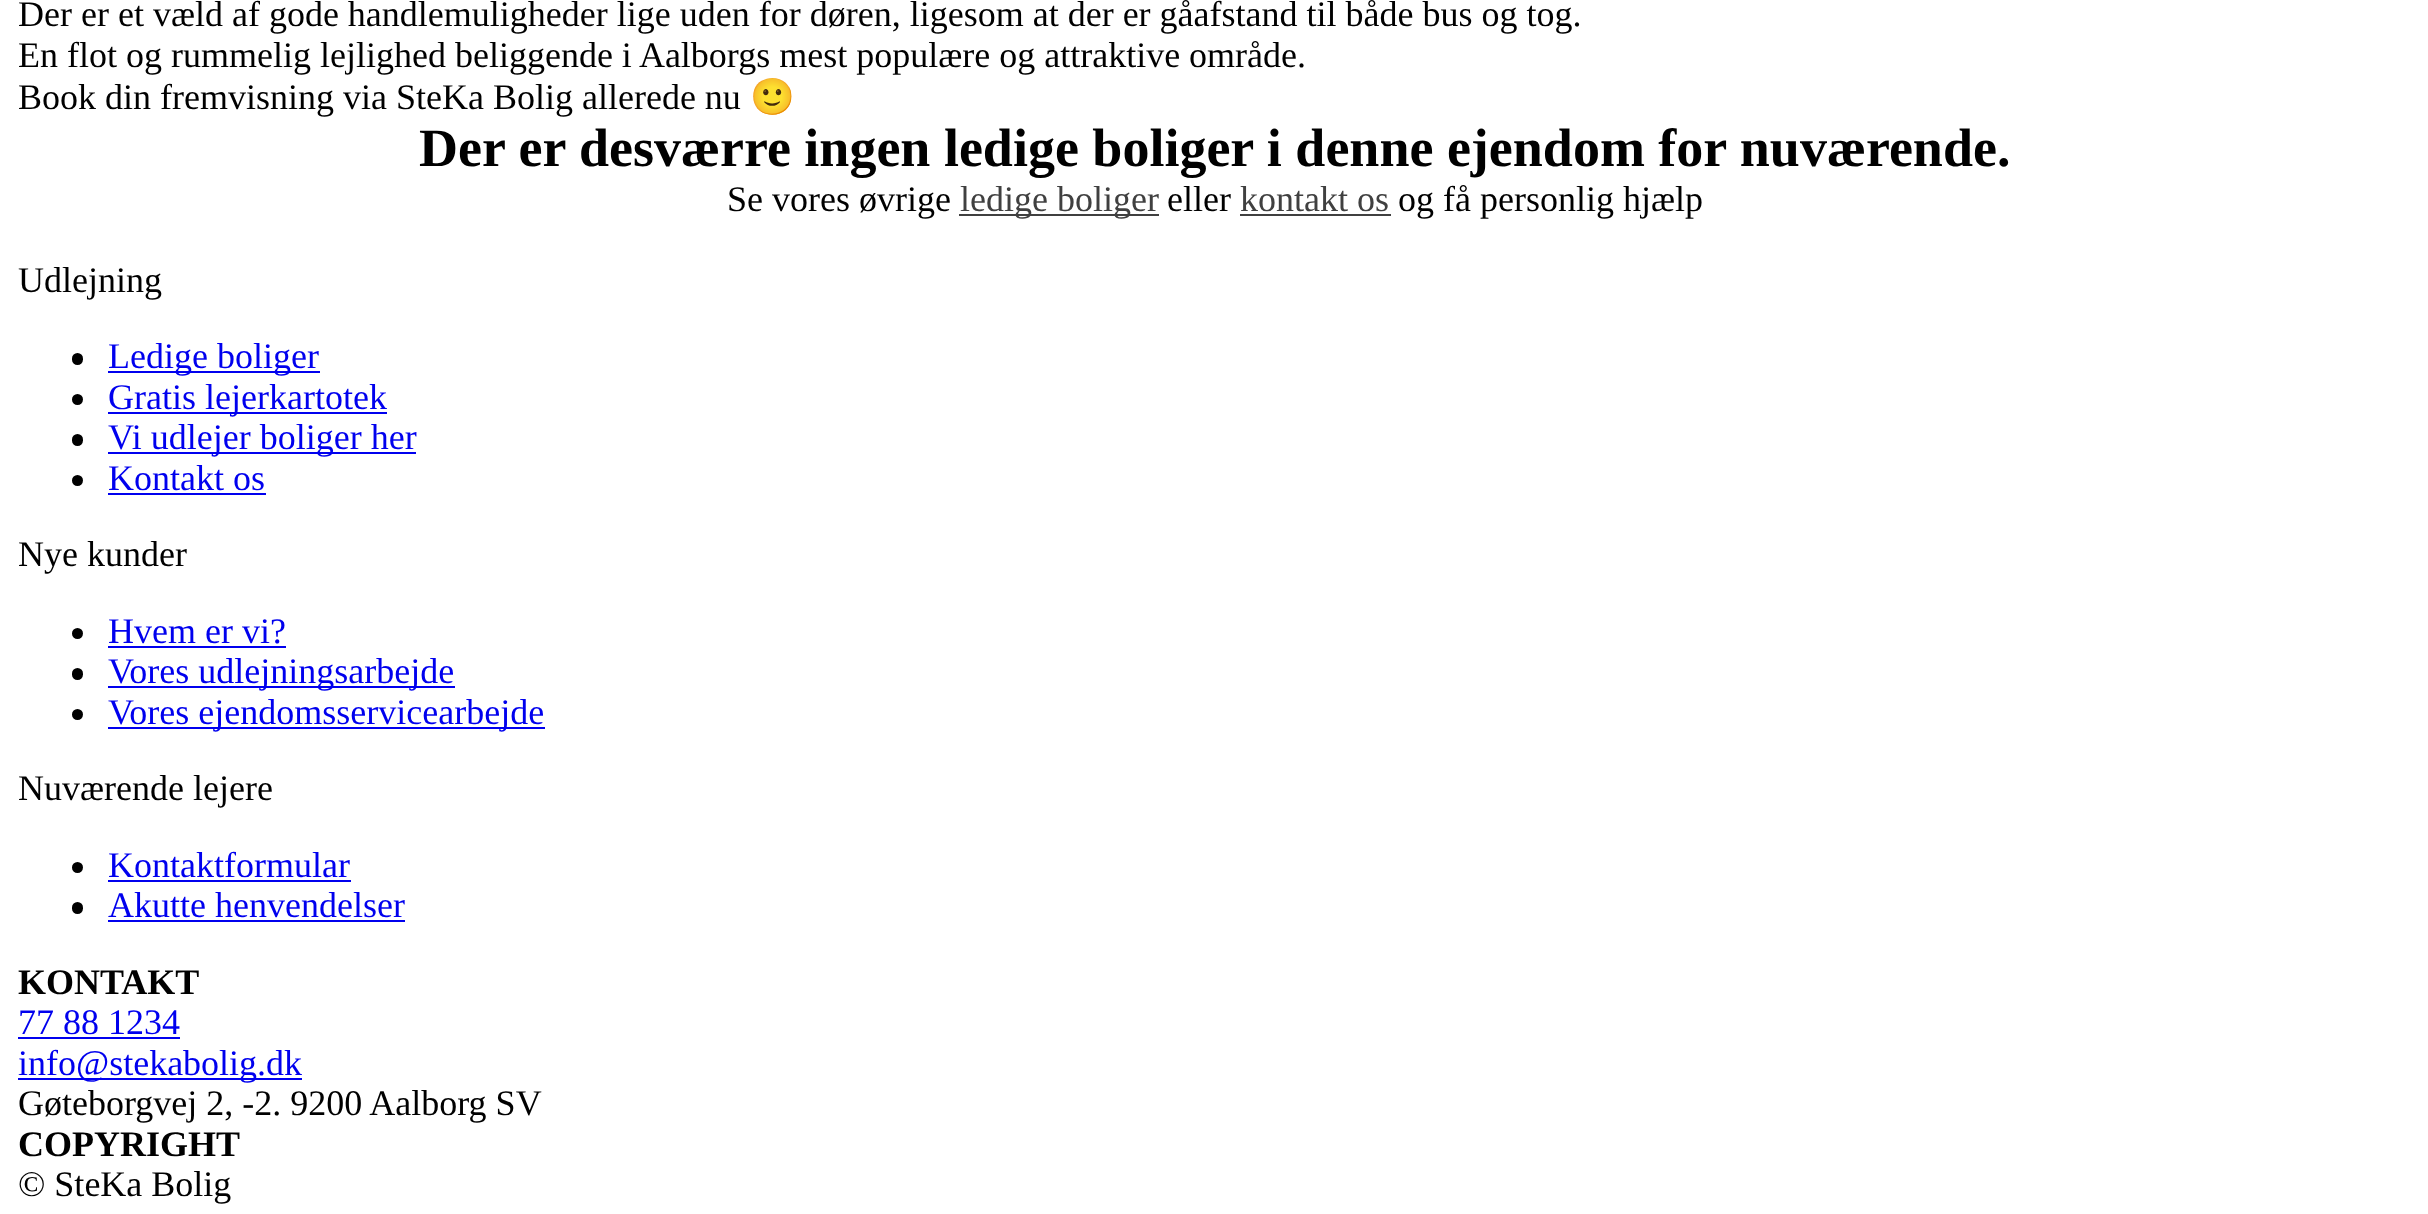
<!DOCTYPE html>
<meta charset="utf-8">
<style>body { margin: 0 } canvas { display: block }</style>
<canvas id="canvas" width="2428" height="1214"></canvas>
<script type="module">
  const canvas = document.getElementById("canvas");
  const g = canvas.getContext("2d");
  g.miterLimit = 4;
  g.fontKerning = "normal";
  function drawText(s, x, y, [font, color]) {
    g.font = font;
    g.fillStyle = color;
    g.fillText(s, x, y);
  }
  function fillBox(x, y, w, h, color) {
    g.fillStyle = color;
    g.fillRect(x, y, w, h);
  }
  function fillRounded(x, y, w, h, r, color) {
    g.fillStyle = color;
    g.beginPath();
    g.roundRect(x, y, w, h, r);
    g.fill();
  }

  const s1 = ["36px Liberation Serif", "#000000"];
  const s2 = ["36px Noto Color Emoji", "#000000"];
  const s3 = ["bold 54px Liberation Serif", "#000000"];
  const s4 = ["36px Liberation Serif", "#404040"];
  const s5 = ["36px Liberation Serif", "#0000EE"];
  const s6 = ["bold 36px Liberation Serif", "#000000"];

  fillBox(0, 0, 2428, 1214, "#FFFFFF");
  drawText("Der er et væld af gode handlemuligheder lige uden for døren, ligesom at der er gåafstand til både bus og tog.", 18, 26, s1);
  drawText("En flot og rummelig lejlighed beliggende i Aalborgs mest populære og attraktive område.", 18, 67, s1);
  drawText("Book din fremvisning via SteKa Bolig allerede nu", 18, 109, s1);
  drawText("🙂", 750, 109, s2);
  drawText("Der er desværre ingen ledige boliger i denne ejendom for nuværende.", 419, 166, s3);
  drawText("Se vores øvrige", 727, 211, s1);
  fillBox(959, 214, 200, 2, "#404040");
  drawText("ledige boliger", 960, 211, s4);
  drawText("eller", 1167, 211, s1);
  drawText("kontakt os", 1240, 211, s4);
  fillBox(1240, 214, 151, 2, "#404040");
  drawText("og få personlig hjælp", 1398, 211, s1);
  drawText("Udlejning", 18, 292, s1);
  fillRounded(72, 353, 11, 12, 5.5, "#000000");
  fillBox(108, 371, 212, 2, "#0000EE");
  drawText("Ledige boliger", 108, 368, s5);
  g.fillStyle = "#000000";
  g.beginPath();
  g.arc(77.5, 399.5, 5.5, 0, Math.PI * 2);
  g.fill();
  fillBox(108, 412, 279, 2, "#0000EE");
  drawText("Gratis lejerkartotek", 108, 409, s5);
  fillRounded(72, 434, 11, 12, 5.5, "#000000");
  fillBox(108, 452, 308, 2, "#0000EE");
  drawText("Vi udlejer boliger her", 108, 449, s5);
  g.fillStyle = "#000000";
  g.beginPath();
  g.arc(77.5, 480.5, 5.5, 0, Math.PI * 2);
  g.fill();
  drawText("Kontakt os", 108, 490, s5);
  fillBox(108, 493, 158, 2, "#0000EE");
  drawText("Nye kunder", 18, 566, s1);
  g.beginPath();
  g.arc(77.5, 633.5, 5.5, 0, Math.PI * 2);
  g.fill();
  drawText("Hvem er vi?", 108, 643, s5);
  fillBox(108, 646, 178, 2, "#0000EE");
  fillRounded(72, 668, 11, 12, 5.5, "#000000");
  fillBox(108, 686, 347, 2, "#0000EE");
  drawText("Vores udlejningsarbejde", 108, 683, s5);
  g.fillStyle = "#000000";
  g.beginPath();
  g.arc(77.5, 714.5, 5.5, 0, Math.PI * 2);
  g.fill();
  fillBox(108, 727, 437, 2, "#0000EE");
  drawText("Vores ejendomsservicearbejde", 108, 724, s5);
  drawText("Nuværende lejere", 18, 800, s1);
  g.beginPath();
  g.arc(77.5, 867.5, 5.5, 0, Math.PI * 2);
  g.fill();
  drawText("Kontaktformular", 108, 877, s5);
  fillBox(108, 880, 243, 2, "#0000EE");
  fillRounded(72, 902, 11, 12, 5.5, "#000000");
  drawText("Akutte henvendelser", 108, 917, s5);
  fillBox(108, 920, 297, 2, "#0000EE");
  drawText("KONTAKT", 18, 994, s6);
  drawText("77 88 1234", 18, 1034, s5);
  fillBox(18, 1037, 162, 2, "#0000EE");
  fillBox(18, 1078, 284, 2, "#0000EE");
  drawText("info@stekabolig.dk", 18, 1075, s5);
  drawText("Gøteborgvej 2, -2. 9200 Aalborg SV", 18, 1115, s1);
  drawText("COPYRIGHT", 18, 1156, s6);
  drawText("© SteKa Bolig", 18, 1196, s1);
</script>
